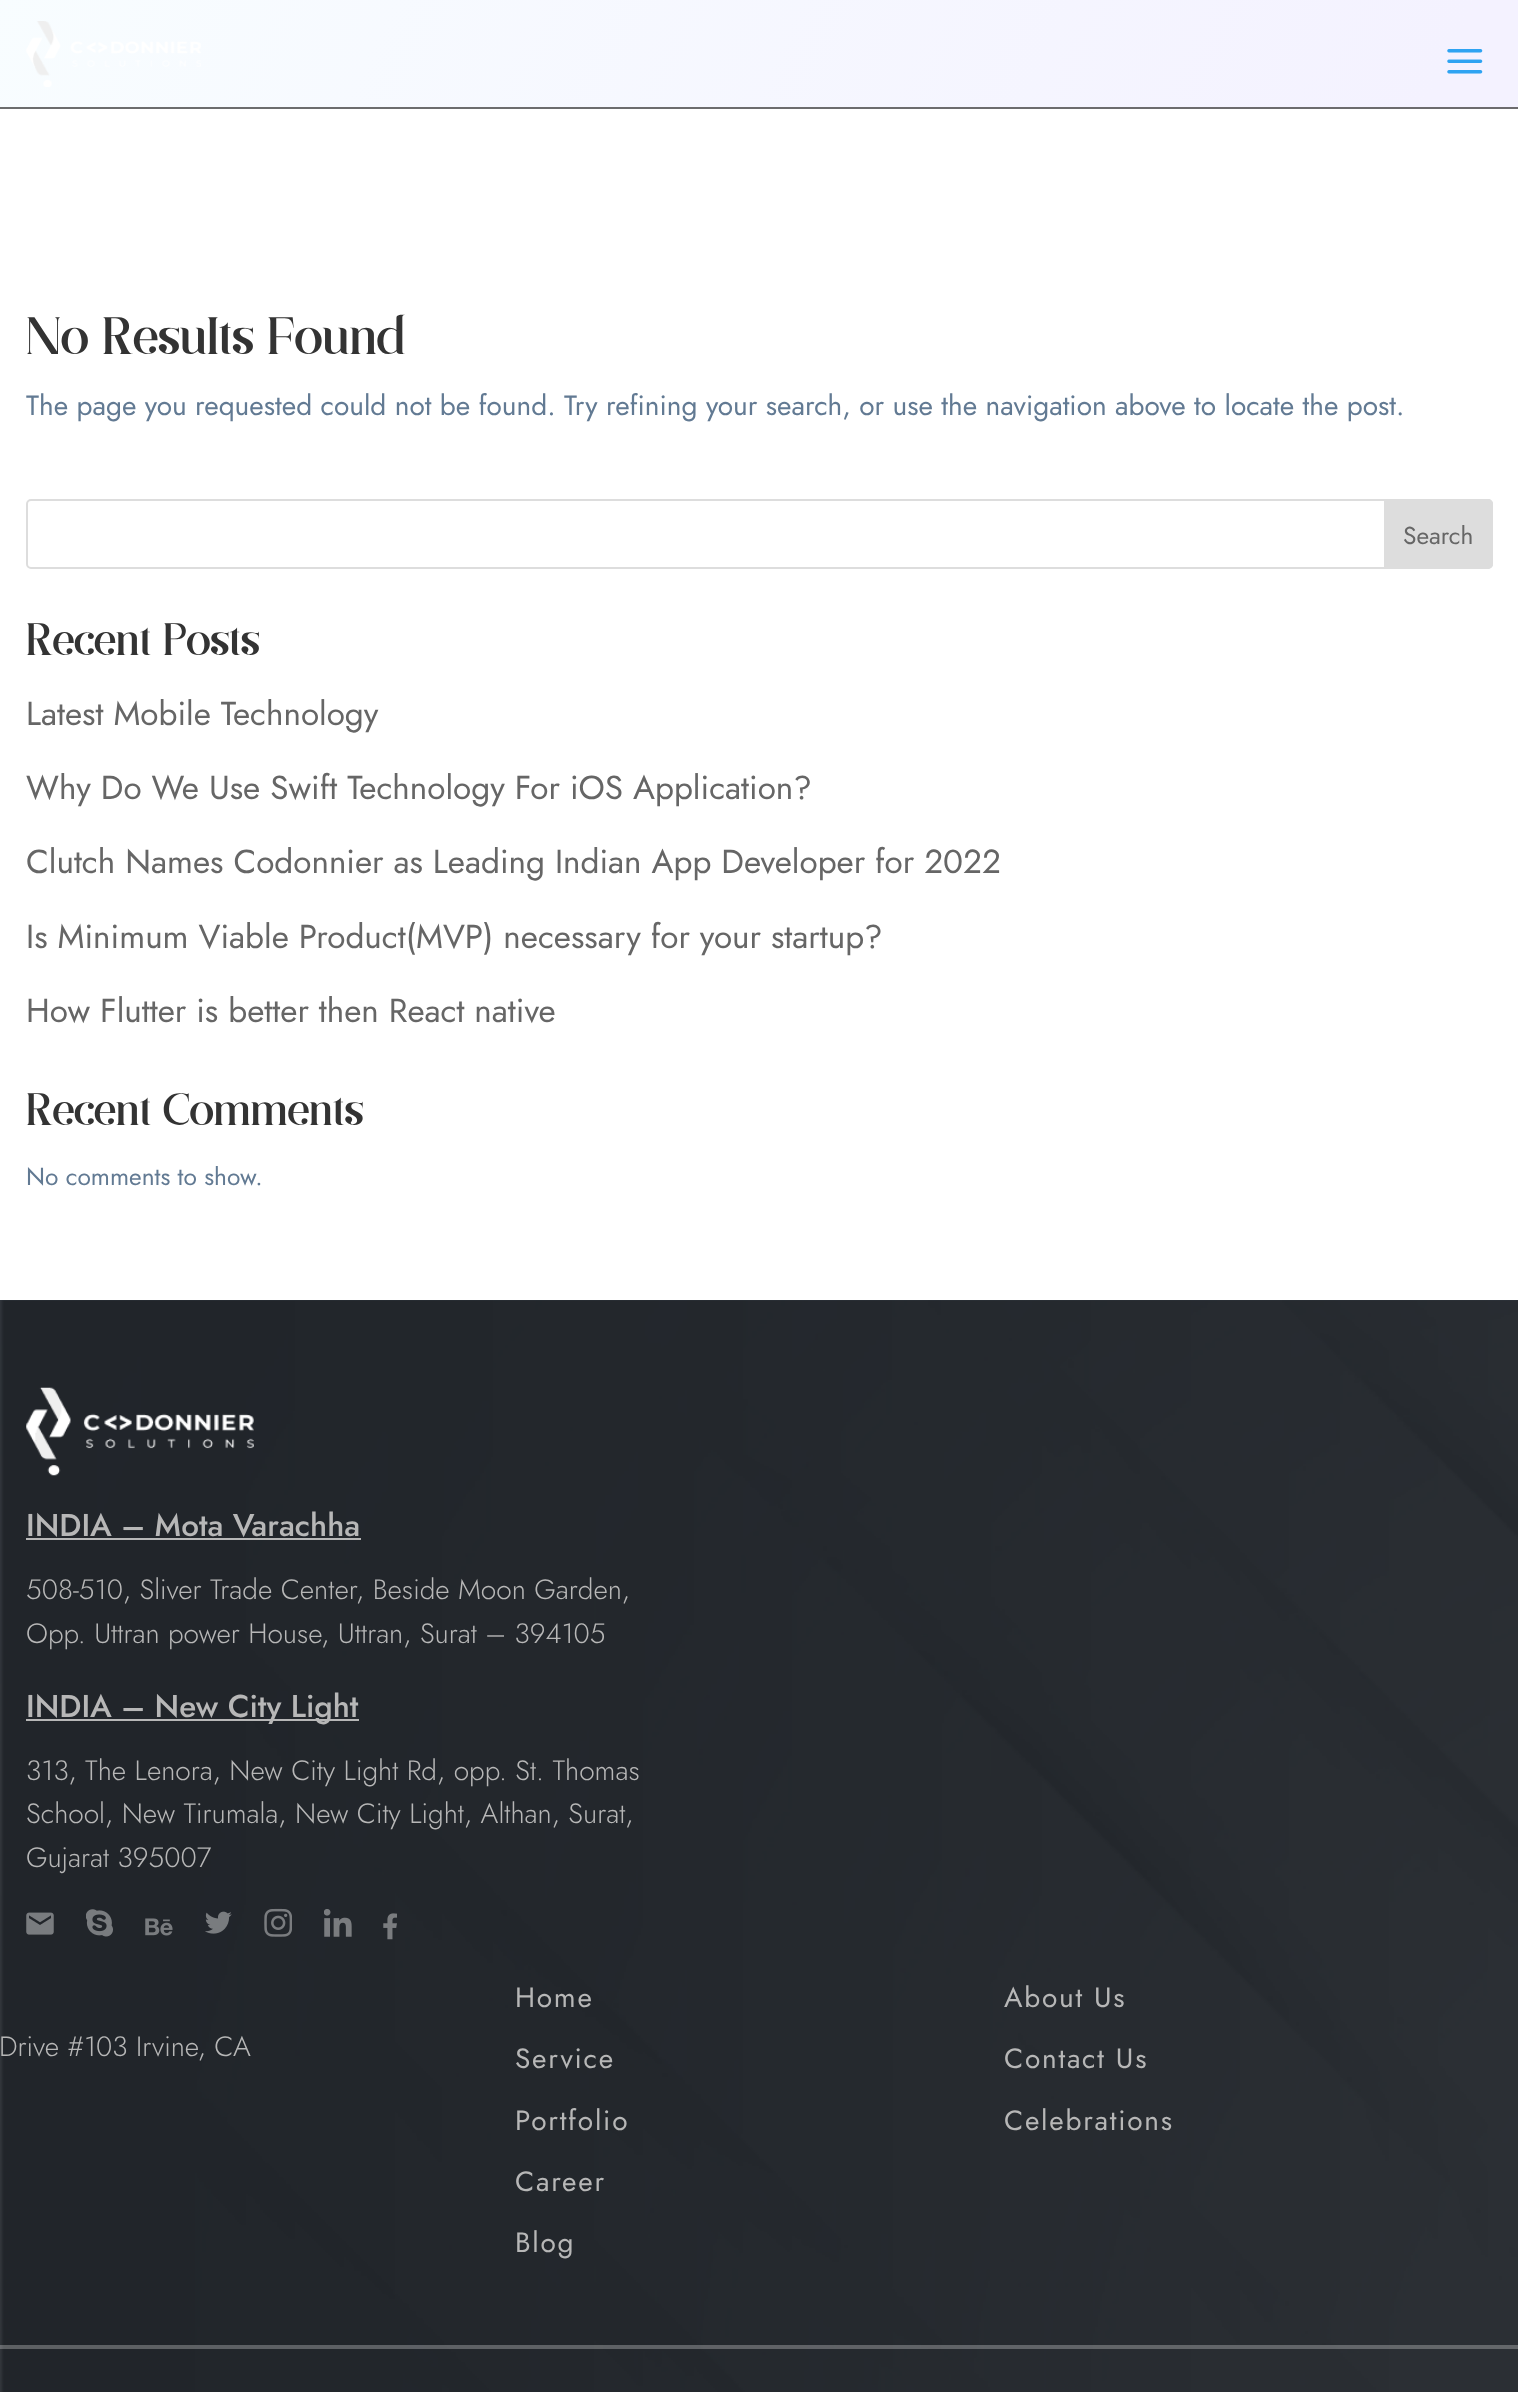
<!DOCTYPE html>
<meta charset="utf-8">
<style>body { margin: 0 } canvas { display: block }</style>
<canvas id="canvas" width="1518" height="2392"></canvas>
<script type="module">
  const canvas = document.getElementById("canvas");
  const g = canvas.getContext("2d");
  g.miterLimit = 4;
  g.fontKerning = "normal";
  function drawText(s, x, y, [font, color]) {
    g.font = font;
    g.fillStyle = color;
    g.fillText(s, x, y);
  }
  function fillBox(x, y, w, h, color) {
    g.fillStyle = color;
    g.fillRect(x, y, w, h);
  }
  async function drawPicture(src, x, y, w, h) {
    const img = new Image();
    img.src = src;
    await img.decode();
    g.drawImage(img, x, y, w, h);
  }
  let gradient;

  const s1 = ["52.5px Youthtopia", "#333333"];
  const s2 = ["28px Jost", "#627A93"];
  const s3 = ["24.5px Jost", "#666666"];
  const s4 = ["45.5px Youthtopia", "#333333"];
  const s5 = ["33.25px Jost", "#666666"];
  const s6 = ["24.5px Jost", "#627A93"];
  const s7 = ["500 31.5px Jost", "#B7B7B7"];
  const s8 = ["300 28px Jost", "#B7B7B7"];
  const s9 = ["28px Jost", "#B7B7B7"];

  fillBox(0, 0, 1518, 2392, "#FFFFFF");
  gradient = g.createLinearGradient(-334, 679, 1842, 1708);
  gradient.addColorStop(0, "#F8FDFF");
  gradient.addColorStop(0.56, "#F4F2FF");
  g.fillStyle = gradient;
  g.fillRect(0, 0, 1518, 107);
  gradient = g.createLinearGradient(-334, 679, 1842, 1708);
  gradient.addColorStop(0, "#6C6D6E");
  gradient.addColorStop(0.56, "#6C6B6E");
  g.fillStyle = gradient;
  g.fillRect(0, 107, 1518, 2);
  await drawPicture("pic1.png", 26, 21, 175, 66);
  await drawPicture("pic2.png", 1447, 49, 36, 25);
  drawText("No Results Found", 26, 354, s1);
  drawText("The page you requested could not be found. Try refining your search, or use the navigation above to locate the post.", 26, 415, s2);
  g.beginPath();
  g.roundRect(27, 500, 1465, 68, 4);
  g.strokeStyle = "#DDDDDD";
  g.lineWidth = 2;
  g.stroke();
  g.fillStyle = "#DDDDDD";
  g.beginPath();
  g.roundRect(1385, 500, 107, 68, [0, 4, 4, 0]);
  g.fill();
  g.stroke();
  drawText("Search", 1403, 544, s3);
  drawText("Recent Posts", 26, 655, s4);
  drawText("Latest Mobile Technology", 26, 725, s5);
  drawText("Why Do We Use Swift Technology For iOS Application?", 26, 799, s5);
  drawText("Clutch Names Codonnier as Leading Indian App Developer for 2022", 26, 873, s5);
  drawText("Is Minimum Viable Product(MVP) necessary for your startup?", 26, 948, s5);
  drawText("How Flutter is better then React native", 26, 1022, s5);
  drawText("Recent Comments", 26, 1125, s4);
  drawText("No comments to show.", 26, 1185, s6);
  fillBox(0, 1300, 1518, 1092, "#373E46");
  await drawPicture("pic3.png", 0, 1300, 1518, 1092);
  await drawPicture("pic4.png", 26, 1387, 228, 89);
  drawText("INDIA – Mota Varachha", 26, 1536, s7);
  fillBox(26, 1538, 335, 2, "#B7B7B7");
  drawText("508-510, Sliver Trade Center, Beside Moon Garden,", 26, 1599, s8);
  drawText("Opp. Uttran power House, Uttran, Surat – 394105", 26, 1643, s8);
  fillBox(26, 1719, 333, 2, "#B7B7B7");
  drawText("INDIA – New City Light", 26, 1717, s7);
  drawText("313, The Lenora, New City Light Rd, opp. St. Thomas", 26, 1780, s8);
  drawText("School, New Tirumala, New City Light, Althan, Surat,", 26, 1823, s8);
  drawText("Gujarat 395007", 26, 1867, s8);
  await drawPicture("pic5.png", 26, 1912, 28, 23);
  await drawPicture("pic6.png", 86, 1909, 27, 28);
  await drawPicture("pic7.png", 145, 1918, 28, 18);
  await drawPicture("pic8.png", 205, 1911, 27, 23);
  await drawPicture("pic9.png", 264, 1908, 28, 29);
  await drawPicture("pic10.png", 324, 1909, 28, 28);
  await drawPicture("pic11.png", 383, 1913, 14, 27);
  drawText("Drive #103 Irvine, CA", -1, 2056, s8);
  g.letterSpacing = "1.75px";
  drawText("Home", 515, 2007, s9);
  drawText("Service", 515, 2068, s9);
  drawText("Portfolio", 515, 2130, s9);
  drawText("Career", 515, 2191, s9);
  drawText("Blog", 515, 2252, s9);
  drawText("About Us", 1004, 2007, s9);
  drawText("Contact Us", 1004, 2068, s9);
  drawText("Celebrations", 1004, 2130, s9);
  fillBox(0, 2345, 1518, 4, "rgba(255, 255, 255, 0.27)");
</script>
